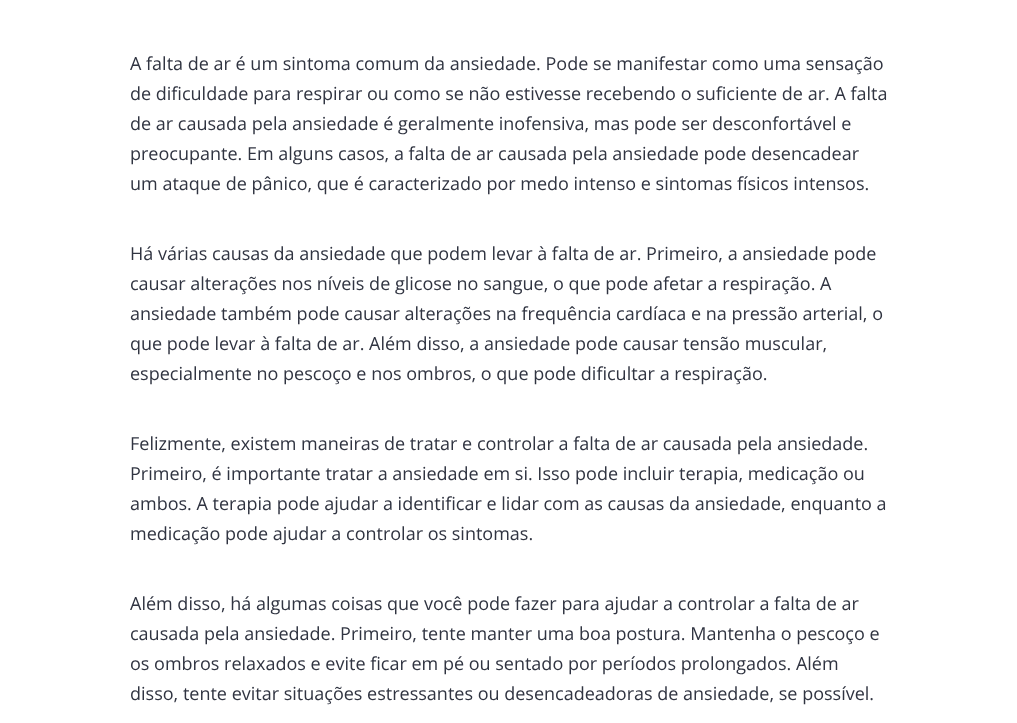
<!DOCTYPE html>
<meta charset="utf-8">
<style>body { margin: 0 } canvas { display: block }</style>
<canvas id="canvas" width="1017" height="723"></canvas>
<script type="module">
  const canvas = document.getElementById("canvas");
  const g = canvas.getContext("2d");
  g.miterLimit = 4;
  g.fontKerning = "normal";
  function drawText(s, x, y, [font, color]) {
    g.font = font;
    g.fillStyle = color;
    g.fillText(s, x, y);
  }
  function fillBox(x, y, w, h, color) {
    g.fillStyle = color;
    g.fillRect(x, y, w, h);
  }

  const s1 = ["18px Open Sans", "#303441"];

  fillBox(0, 0, 1017, 723, "#FFFFFF");
  drawText("A falta de ar é um sintoma comum da ansiedade. Pode se manifestar como uma sensação", 130, 70, s1);
  drawText("de dificuldade para respirar ou como se não estivesse recebendo o suficiente de ar. A falta", 130, 100, s1);
  drawText("de ar causada pela ansiedade é geralmente inofensiva, mas pode ser desconfortável e", 130, 130, s1);
  drawText("preocupante. Em alguns casos, a falta de ar causada pela ansiedade pode desencadear", 130, 160, s1);
  drawText("um ataque de pânico, que é caracterizado por medo intenso e sintomas físicos intensos.", 130, 190, s1);
  drawText("Há várias causas da ansiedade que podem levar à falta de ar. Primeiro, a ansiedade pode", 130, 260, s1);
  drawText("causar alterações nos níveis de glicose no sangue, o que pode afetar a respiração. A", 130, 290, s1);
  drawText("ansiedade também pode causar alterações na frequência cardíaca e na pressão arterial, o", 130, 320, s1);
  drawText("que pode levar à falta de ar. Além disso, a ansiedade pode causar tensão muscular,", 130, 350, s1);
  drawText("especialmente no pescoço e nos ombros, o que pode dificultar a respiração.", 130, 380, s1);
  drawText("Felizmente, existem maneiras de tratar e controlar a falta de ar causada pela ansiedade.", 130, 450, s1);
  drawText("Primeiro, é importante tratar a ansiedade em si. Isso pode incluir terapia, medicação ou", 130, 480, s1);
  drawText("ambos. A terapia pode ajudar a identificar e lidar com as causas da ansiedade, enquanto a", 130, 510, s1);
  drawText("medicação pode ajudar a controlar os sintomas.", 130, 540, s1);
  drawText("Além disso, há algumas coisas que você pode fazer para ajudar a controlar a falta de ar", 130, 610, s1);
  drawText("causada pela ansiedade. Primeiro, tente manter uma boa postura. Mantenha o pescoço e", 130, 640, s1);
  drawText("os ombros relaxados e evite ficar em pé ou sentado por períodos prolongados. Além", 130, 670, s1);
  drawText("disso, tente evitar situações estressantes ou desencadeadoras de ansiedade, se possível.", 130, 700, s1);
</script>
